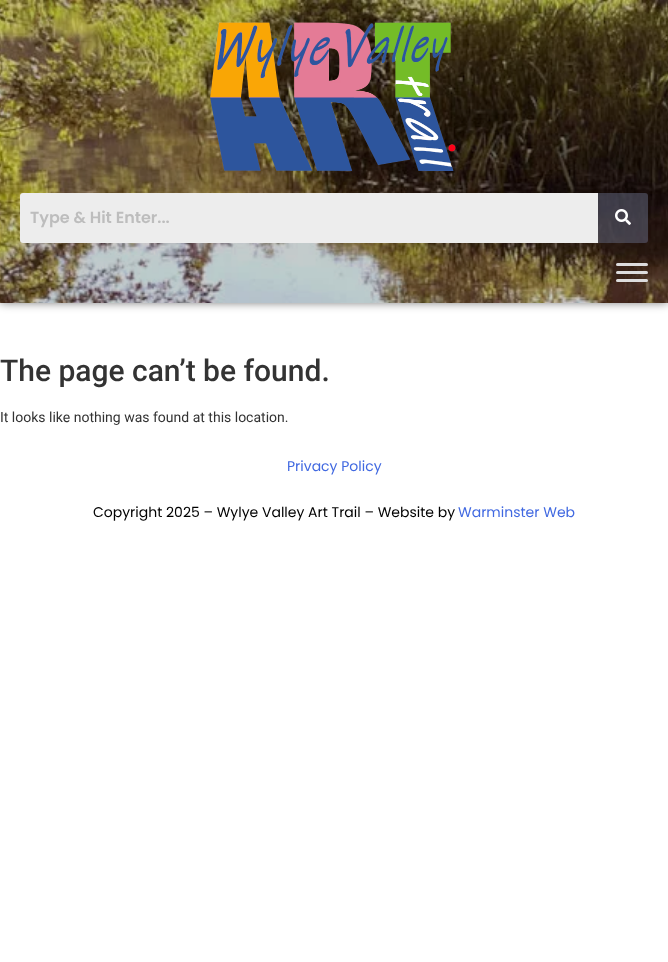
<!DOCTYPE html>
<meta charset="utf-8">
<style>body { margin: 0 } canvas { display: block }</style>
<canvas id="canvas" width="668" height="962"></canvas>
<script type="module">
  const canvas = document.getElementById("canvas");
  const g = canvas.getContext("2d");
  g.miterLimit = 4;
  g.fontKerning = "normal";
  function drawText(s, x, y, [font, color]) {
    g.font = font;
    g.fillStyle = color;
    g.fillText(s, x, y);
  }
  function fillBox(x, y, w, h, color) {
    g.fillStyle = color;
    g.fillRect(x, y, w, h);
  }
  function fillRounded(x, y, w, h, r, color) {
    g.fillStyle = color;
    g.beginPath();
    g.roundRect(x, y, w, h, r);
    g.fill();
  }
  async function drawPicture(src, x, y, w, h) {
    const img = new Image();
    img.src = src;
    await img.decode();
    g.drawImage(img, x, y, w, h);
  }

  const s1 = ["600 16px Poppins", "#BDBDBD"];
  const s2 = ["500 30px Roboto", "#333333"];
  const s3 = ["14px Roboto", "#333333"];
  const s4 = ["14px Poppins", "#4169E1"];
  const s5 = ["14px Poppins", "#000000"];

  fillBox(0, 0, 668, 962, "#FFFFFF");
  g.fillStyle = "rgba(0, 0, 0, 0.5)";
  g.filter = "blur(5px)";
  g.beginPath();
  g.rect(0, 0, 668, 303);
  g.fill();
  g.filter = "none";
  await drawPicture("pic1.png", 0, 0, 668, 303);
  await drawPicture("pic2.png", 210, 22, 246, 149);
  g.fillStyle = "#EDEDED";
  g.beginPath();
  g.roundRect(20, 193, 578, 50, [3, 0, 0, 3]);
  g.fill();
  drawText("Type & Hit Enter...", 30, 223, s1);
  g.fillStyle = "rgba(101, 107, 131, 0.5)";
  g.beginPath();
  g.roundRect(598, 193, 50, 50, [0, 3, 3, 0]);
  g.fill();
  await drawPicture("pic3.png", 615, 209, 16, 16);
  fillRounded(616, 263, 32, 3, 1.5, "#DDDDDD");
  fillRounded(616, 271, 32, 3, 1.5, "#DDDDDD");
  fillRounded(616, 279, 32, 3, 1.5, "#DDDDDD");
  drawText("The page can’t be found.", 0, 381, s2);
  drawText("It looks like nothing was found at this location.", 0, 422, s3);
  drawText("Privacy Policy", 287, 471, s4);
  drawText("Copyright 2025 – Wylye Valley Art Trail – Website by", 93, 517, s5);
  drawText("Warminster Web", 458, 517, s4);
</script>
